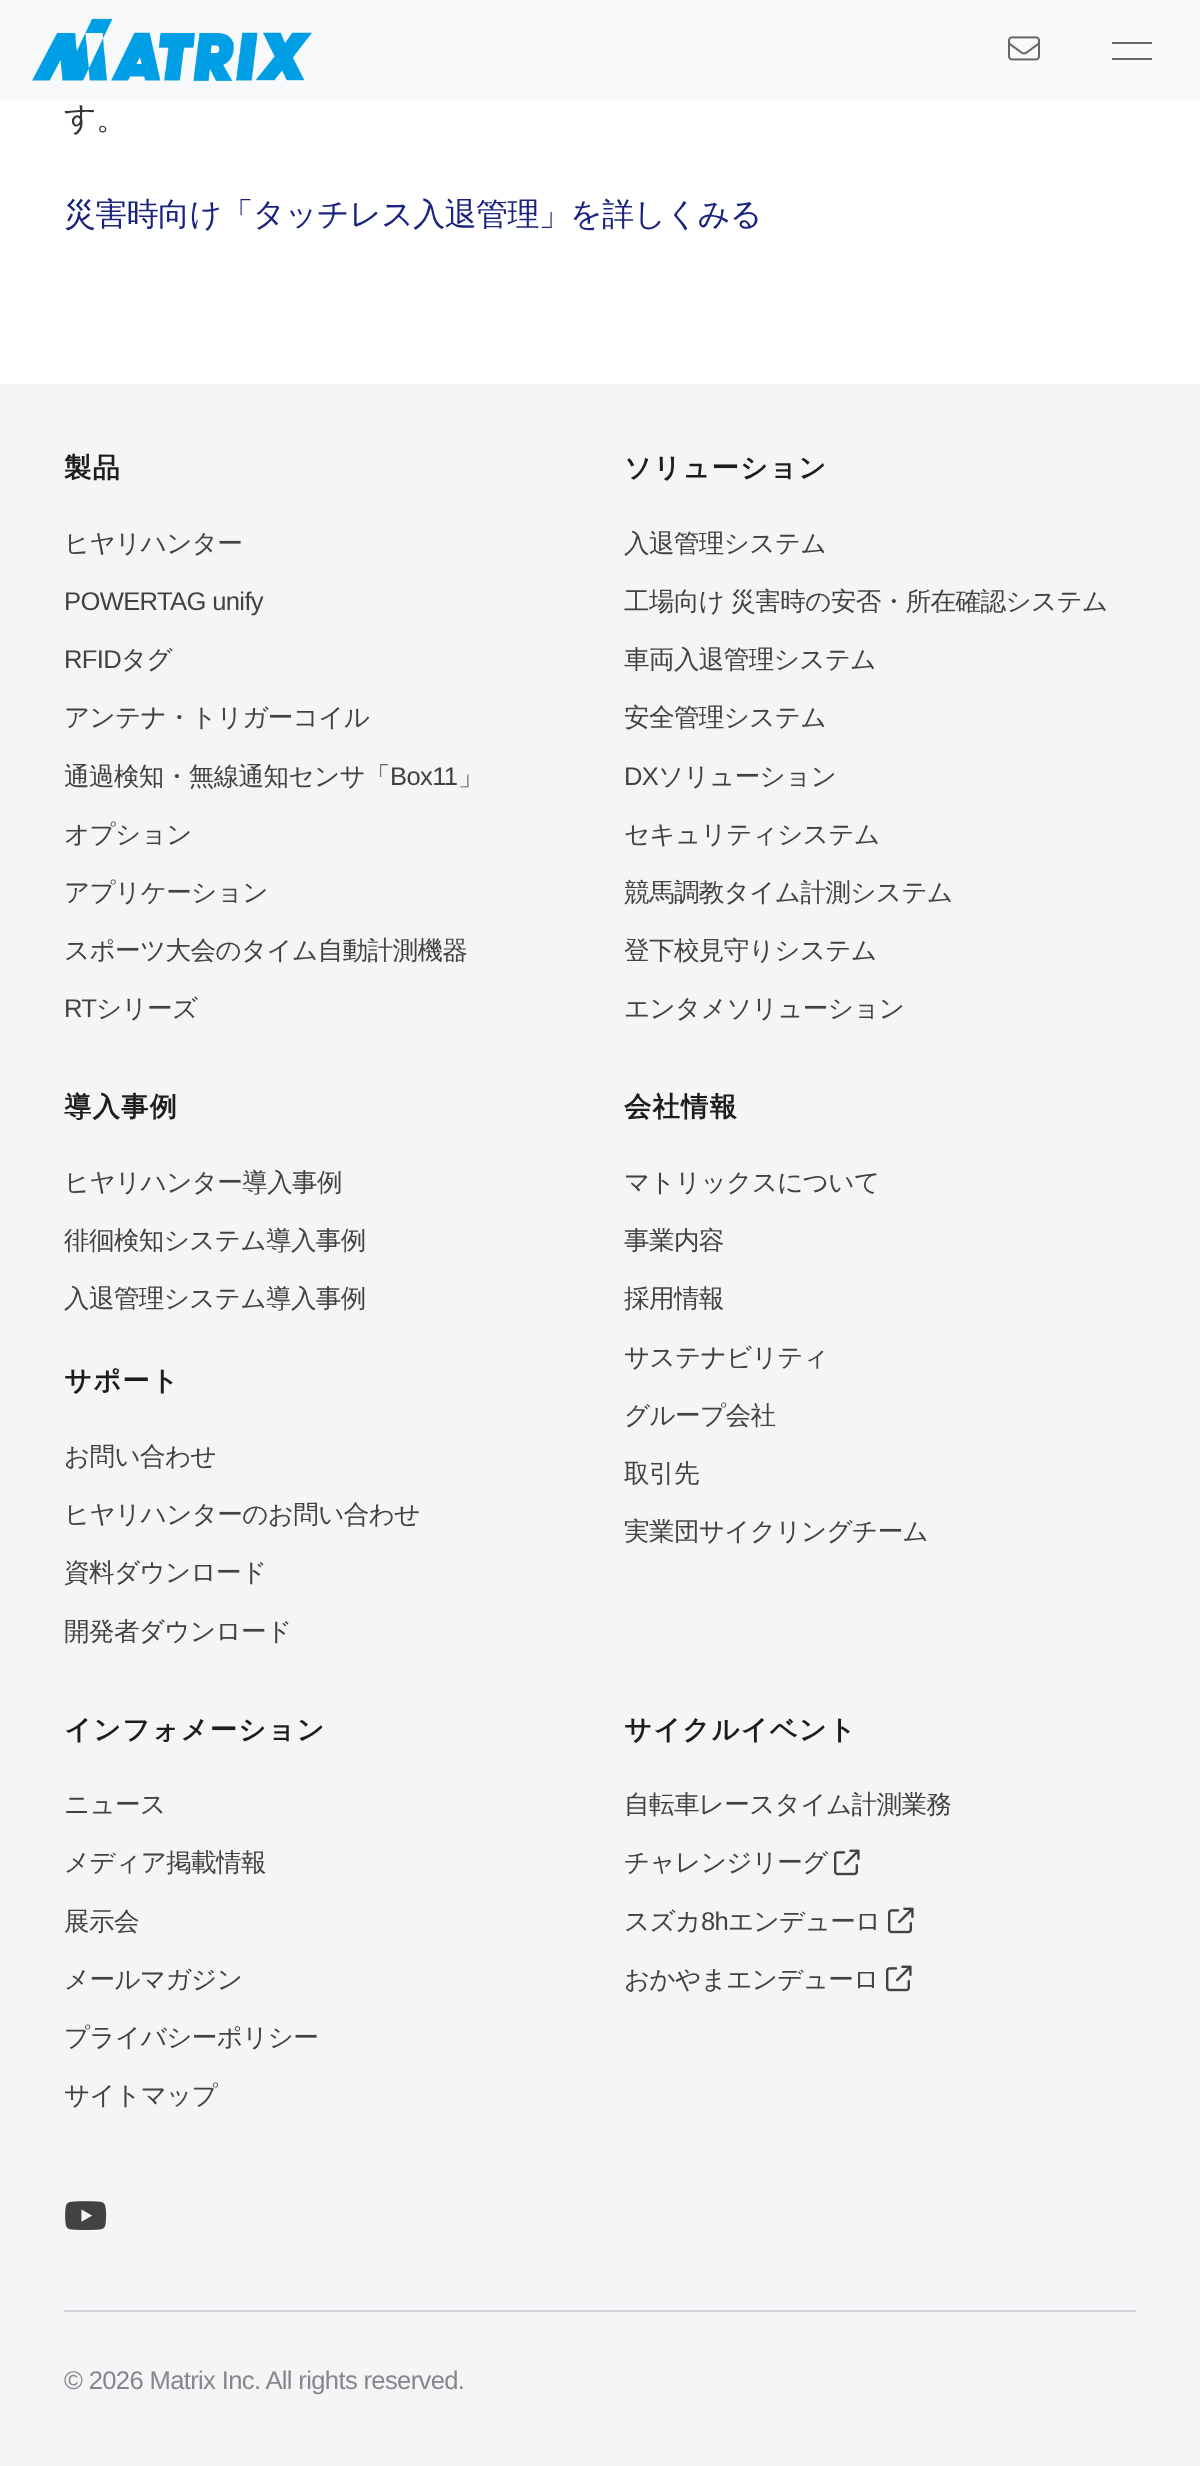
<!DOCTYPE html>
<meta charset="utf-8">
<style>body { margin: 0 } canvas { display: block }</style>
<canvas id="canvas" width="1200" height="2466"></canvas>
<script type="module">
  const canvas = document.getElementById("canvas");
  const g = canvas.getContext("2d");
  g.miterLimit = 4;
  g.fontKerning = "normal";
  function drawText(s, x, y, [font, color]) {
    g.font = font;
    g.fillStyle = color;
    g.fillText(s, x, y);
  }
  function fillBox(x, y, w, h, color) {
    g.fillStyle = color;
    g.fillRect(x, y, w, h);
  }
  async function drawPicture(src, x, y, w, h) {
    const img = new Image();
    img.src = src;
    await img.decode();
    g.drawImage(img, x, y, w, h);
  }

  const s1 = ["500 32px WenQuanYi Zen Hei", "#333333"];
  const s2 = ["500 32px WenQuanYi Zen Hei", "#1A237E"];
  const s3 = ["bold 27.25px WenQuanYi Zen Hei", "#1D1D1F"];
  const s4 = ["500 25.6px WenQuanYi Zen Hei", "#424245"];
  const s5 = ["25.6px Liberation Sans", "#424245"];
  const s6 = ["25.6px Liberation Sans", "#86868B"];

  fillBox(0, 0, 1200, 2466, "#FFFFFF");
  fillBox(0, 0, 1200, 100, "#F8F9FA");
  await drawPicture("pic1.png", 32, 18, 280, 63);
  await drawPicture("pic2.png", 1008, 36, 32, 25);
  fillBox(1112, 42, 40, 2, "#666666");
  fillBox(1112, 58, 40, 2, "#666666");
  g.letterSpacing = "-0.65px";
  drawText("す。", 64, 129, s1);
  drawText("災害時向け「タッチレス入退管理」を詳しくみる", 64, 225, s2);
  fillBox(0, 384, 1200, 2082, "#F5F5F7");
  g.letterSpacing = "1.25px";
  drawText("製品", 64, 477, s3);
  g.letterSpacing = "-0.65px";
  drawText("ヒヤリハンター", 64, 552, s4);
  drawText("POWERTAG unify", 64, 610, s5);
  drawText("RFID", 64, 668, s5);
  drawText("タグ", 121, 668, s4);
  drawText("アンテナ・トリガーコイル", 64, 726, s4);
  drawText("通過検知・無線通知センサ「", 64, 785, s4);
  drawText("Box11", 390, 785, s5);
  drawText("」", 458, 785, s4);
  drawText("オプション", 64, 843, s4);
  drawText("アプリケーション", 64, 901, s4);
  drawText("スポーツ大会のタイム自動計測機器", 64, 959, s4);
  drawText("RT", 64, 1017, s5);
  drawText("シリーズ", 96, 1017, s4);
  g.letterSpacing = "1.25px";
  drawText("ソリューション", 624, 477, s3);
  g.letterSpacing = "-0.65px";
  drawText("入退管理システム", 624, 552, s4);
  g.wordSpacing = "-1px";
  drawText("工場向け 災害時の安否・所在確認システム", 624, 610, s4);
  g.wordSpacing = "0px";
  drawText("車両入退管理システム", 624, 668, s4);
  drawText("安全管理システム", 624, 726, s4);
  drawText("DX", 624, 785, s5);
  drawText("ソリューション", 658, 785, s4);
  drawText("セキュリティシステム", 624, 843, s4);
  drawText("競馬調教タイム計測システム", 624, 901, s4);
  drawText("登下校見守りシステム", 624, 959, s4);
  drawText("エンタメソリューション", 624, 1017, s4);
  g.letterSpacing = "1.25px";
  drawText("導入事例", 64, 1116, s3);
  g.letterSpacing = "-0.65px";
  drawText("ヒヤリハンター導入事例", 64, 1191, s4);
  drawText("徘徊検知システム導入事例", 64, 1249, s4);
  drawText("入退管理システム導入事例", 64, 1307, s4);
  g.letterSpacing = "1.25px";
  drawText("サポート", 64, 1390, s3);
  g.letterSpacing = "-0.65px";
  drawText("お問い合わせ", 64, 1465, s4);
  drawText("ヒヤリハンターのお問い合わせ", 64, 1523, s4);
  drawText("資料ダウンロード", 64, 1581, s4);
  drawText("開発者ダウンロード", 64, 1640, s4);
  g.letterSpacing = "1.25px";
  drawText("会社情報", 624, 1116, s3);
  g.letterSpacing = "-0.65px";
  drawText("マトリックスについて", 624, 1191, s4);
  drawText("事業内容", 624, 1249, s4);
  drawText("採用情報", 624, 1307, s4);
  drawText("サステナビリティ", 624, 1366, s4);
  drawText("グループ会社", 624, 1424, s4);
  drawText("取引先", 624, 1482, s4);
  drawText("実業団サイクリングチーム", 624, 1540, s4);
  g.letterSpacing = "1.25px";
  drawText("インフォメーション", 64, 1739, s3);
  g.letterSpacing = "-0.65px";
  drawText("ニュース", 64, 1813, s4);
  drawText("メディア掲載情報", 64, 1871, s4);
  drawText("展示会", 64, 1930, s4);
  drawText("メールマガジン", 64, 1988, s4);
  drawText("プライバシーポリシー", 64, 2046, s4);
  drawText("サイトマップ", 64, 2104, s4);
  g.letterSpacing = "1.25px";
  drawText("サイクルイベント", 624, 1739, s3);
  g.letterSpacing = "-0.65px";
  drawText("自転車レースタイム計測業務", 624, 1813, s4);
  drawText("チャレンジリーグ", 624, 1871, s4);
  await drawPicture("pic3.png", 834, 1849, 26, 27);
  drawText("スズカ", 624, 1930, s4);
  drawText("8h", 701, 1930, s5);
  drawText("エンデューロ", 728, 1930, s4);
  await drawPicture("pic3.png", 888, 1907, 26, 27);
  drawText("おかやまエンデューロ", 624, 1988, s4);
  await drawPicture("pic3.png", 886, 1965, 26, 27);
  await drawPicture("pic4.png", 65, 2201, 42, 29);
  fillBox(64, 2310, 1072, 2, "#D2D2D7");
  drawText("© 2026 Matrix Inc. All rights reserved.", 64, 2389, s6);
</script>
